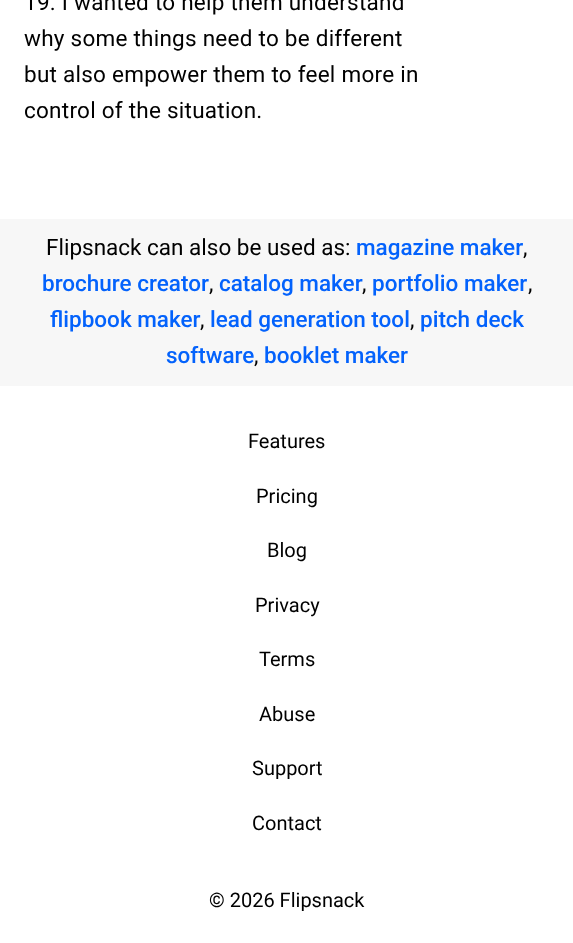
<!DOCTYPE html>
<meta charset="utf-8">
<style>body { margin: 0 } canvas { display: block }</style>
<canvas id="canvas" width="573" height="943"></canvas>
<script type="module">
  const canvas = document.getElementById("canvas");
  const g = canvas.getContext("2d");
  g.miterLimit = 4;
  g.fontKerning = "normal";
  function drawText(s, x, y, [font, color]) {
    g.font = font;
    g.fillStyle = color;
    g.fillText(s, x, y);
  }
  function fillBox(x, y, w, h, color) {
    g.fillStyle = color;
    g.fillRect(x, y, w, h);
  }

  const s1 = ["22.5px Roboto", "#000000"];
  const s2 = ["500 22.5px Roboto", "#0362FC"];
  const s3 = ["20px Roboto", "#000000"];

  fillBox(0, 0, 573, 943, "#FFFFFF");
  g.letterSpacing = "0.25px";
  drawText("19. I wanted to help them understand", 24, 10, s1);
  drawText("why some things need to be different", 24, 46, s1);
  drawText("but also empower them to feel more in", 24, 82, s1);
  drawText("control of the situation.", 24, 118, s1);
  fillBox(0, 219, 573, 167, "#F7F7F7");
  g.letterSpacing = "0px";
  drawText("Flipsnack can also be used as:", 46, 255, s1);
  drawText("magazine maker", 356, 255, s2);
  drawText(",", 523, 255, s1);
  drawText("brochure creator", 42, 291, s2);
  drawText(",", 209, 291, s1);
  drawText("catalog maker", 219, 291, s2);
  drawText(",", 362, 291, s1);
  drawText("portfolio maker", 372, 291, s2);
  drawText(",", 528, 291, s1);
  drawText("flipbook maker", 50, 327, s2);
  drawText(",", 200, 327, s1);
  drawText("lead generation tool", 210, 327, s2);
  drawText(",", 410, 327, s1);
  drawText("pitch deck", 420, 327, s2);
  drawText("software", 166, 363, s2);
  drawText(",", 254, 363, s1);
  drawText("booklet maker", 264, 363, s2);
  drawText("Features", 248, 448, s3);
  drawText("Pricing", 256, 503, s3);
  drawText("Blog", 267, 557, s3);
  drawText("Privacy", 255, 612, s3);
  drawText("Terms", 259, 666, s3);
  drawText("Abuse", 259, 721, s3);
  drawText("Support", 252, 775, s3);
  drawText("Contact", 252, 830, s3);
  drawText("© 2026 Flipsnack", 209, 907, s3);
</script>
